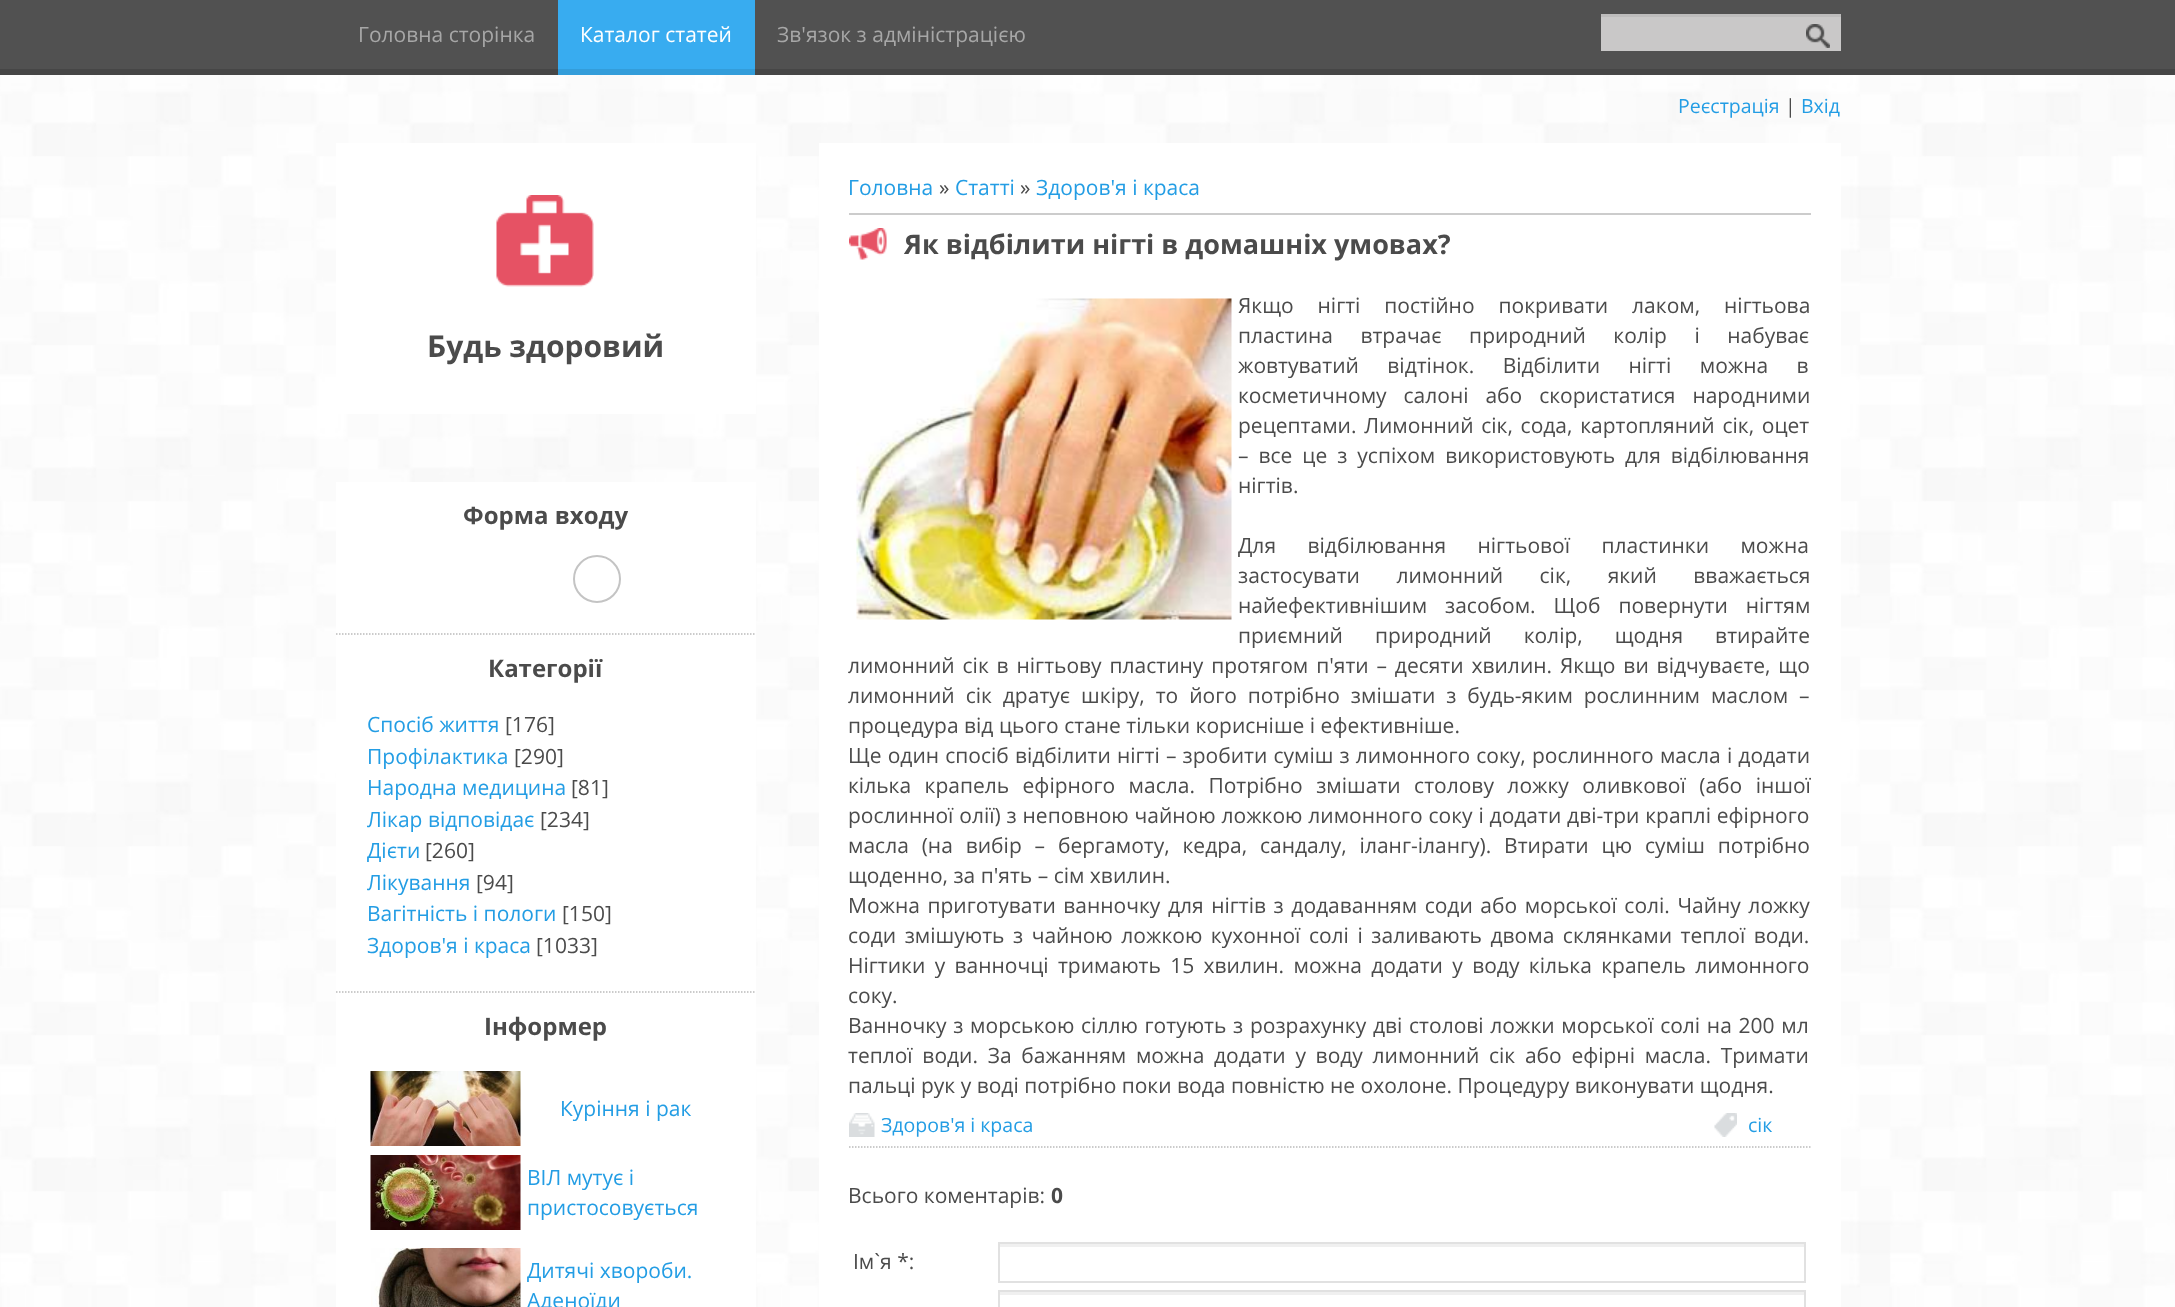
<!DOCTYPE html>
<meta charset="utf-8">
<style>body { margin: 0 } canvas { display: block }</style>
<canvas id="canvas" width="2175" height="1307"></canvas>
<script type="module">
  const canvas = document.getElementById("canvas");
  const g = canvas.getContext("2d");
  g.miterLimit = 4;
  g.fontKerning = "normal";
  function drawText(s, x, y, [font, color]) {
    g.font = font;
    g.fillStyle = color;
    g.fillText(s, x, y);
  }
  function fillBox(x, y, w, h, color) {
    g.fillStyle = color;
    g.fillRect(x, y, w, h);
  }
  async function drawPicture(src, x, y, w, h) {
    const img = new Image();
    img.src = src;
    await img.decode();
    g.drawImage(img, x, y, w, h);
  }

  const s1 = ["21px Open Sans", "#A7A7A7"];
  const s2 = ["21px Open Sans", "#FFFFFF"];
  const s3 = ["19.5px Open Sans", "#239DE4"];
  const s4 = ["19.5px Open Sans", "#4B4B4B"];
  const s5 = ["bold 30px Open Sans", "#4B4B4B"];
  const s6 = ["21px Open Sans", "#239DE4"];
  const s7 = ["21px Open Sans", "#4B4B4B"];
  const s8 = ["bold 27px Open Sans", "#4B4B4B"];
  const s9 = ["bold 21px Open Sans", "#4B4B4B"];
  const s10 = ["bold 24px Open Sans", "#4B4B4B"];

  fillBox(0, 0, 2175, 1307, "#FFFFFF");
  await drawPicture("pic1.png", 0, 75, 2175, 1232);
  fillBox(0, 0, 2175, 69, "#515151");
  fillBox(0, 69, 2175, 6, "#464646");
  drawText("Головна сторінка", 358, 42, s1);
  fillBox(558, 0, 197, 69, "#38ACF0");
  fillBox(558, 69, 197, 6, "#339DDA");
  drawText("Каталог статей", 580, 42, s2);
  drawText("Зв'язок з адміністрацією", 777, 42, s1);
  fillBox(1601, 17, 240, 34, "#C9C8C8");
  fillBox(1601, 14, 240, 3, "#BDBCBC");
  await drawPicture("pic2.png", 1806, 24, 24, 24);
  drawText("Реєстрація", 1678, 113, s3);
  drawText("|", 1785, 113, s4);
  drawText("Вхід", 1801, 113, s3);
  fillBox(336, 143, 420, 271, "#FFFFFF");
  await drawPicture("pic3.png", 496, 195, 98, 92);
  drawText("Будь здоровий", 427, 357, s5);
  fillBox(819, 143, 1022, 1164, "#FFFFFF");
  drawText("Головна", 848, 195, s6);
  drawText("»", 939, 195, s7);
  drawText("Статті", 955, 195, s6);
  drawText("»", 1020, 195, s7);
  drawText("Здоров'я і краса", 1036, 195, s6);
  fillBox(849, 213, 962, 2, "#CCCCCC");
  await drawPicture("pic4.png", 849, 228, 38, 32);
  drawText("Як відбілити нігті в домашніх умовах?", 904, 254, s8);
  g.beginPath();
  g.moveTo(849, 1147);
  g.lineTo(1810.5, 1147);
  g.strokeStyle = "#BBBBBB";
  g.lineWidth = 1.5;
  g.setLineDash([1.5, 1.5]);
  g.stroke();
  await drawPicture("pic5.png", 856, 298, 376, 322);
  g.wordSpacing = "18.5px";
  drawText("Якщо нігті постійно покривати лаком, нігтьова", 1238, 313, s7);
  g.wordSpacing = "22px";
  drawText("пластина втрачає природний колір і набуває", 1238, 343, s7);
  g.wordSpacing = "23px";
  drawText("жовтуватий відтінок. Відбілити нігті можна в", 1238, 373, s7);
  g.wordSpacing = "11.5px";
  drawText("косметичному салоні або скористатися народними", 1238, 403, s7);
  g.wordSpacing = "2.25px";
  drawText("рецептами. Лимонний сік, сода, картопляний сік, оцет", 1238, 433, s7);
  g.wordSpacing = "4.5px";
  drawText("– все це з успіхом використовують для відбілювання", 1238, 463, s7);
  g.wordSpacing = "0px";
  drawText("нігтів.", 1238, 493, s7);
  g.wordSpacing = "26px";
  drawText("Для відбілювання нігтьової пластинки можна", 1238, 553, s7);
  g.wordSpacing = "31px";
  drawText("застосувати лимонний сік, який вважається", 1238, 583, s7);
  g.wordSpacing = "12.5px";
  drawText("найефективнішим засобом. Щоб повернути нігтям", 1238, 613, s7);
  g.wordSpacing = "26.5px";
  drawText("приємний природний колір, щодня втирайте", 1238, 643, s7);
  g.wordSpacing = "2.4px";
  drawText("лимонний сік в нігтьову пластину протягом п'яти – десяти хвилин. Якщо ви відчуваєте, що", 848, 673, s7);
  g.wordSpacing = "5.5px";
  drawText("лимонний сік дратує шкіру, то його потрібно змішати з будь-яким рослинним маслом –", 848, 703, s7);
  g.wordSpacing = "0px";
  drawText("процедура від цього стане тільки корисніше і ефективніше.", 848, 733, s7);
  g.wordSpacing = "0.7px";
  drawText("Ще один спосіб відбілити нігті – зробити суміш з лимонного соку, рослинного масла і додати", 848, 763, s7);
  g.wordSpacing = "8px";
  drawText("кілька крапель ефірного масла. Потрібно змішати столову ложку оливкової (або іншої", 848, 793, s7);
  g.wordSpacing = "0.4px";
  drawText("рослинної олії) з неповною чайною ложкою лимонного соку і додати дві-три краплі ефірного", 848, 823, s7);
  g.wordSpacing = "7.4px";
  drawText("масла (на вибір – бергамоту, кедра, сандалу, іланг-ілангу). Втирати цю суміш потрібно", 848, 853, s7);
  g.wordSpacing = "0px";
  drawText("щоденно, за п'ять – сім хвилин.", 848, 883, s7);
  g.wordSpacing = "2.1px";
  drawText("Можна приготувати ванночку для нігтів з додаванням соди або морської солі. Чайну ложку", 848, 913, s7);
  g.wordSpacing = "3.1px";
  drawText("соди змішують з чайною ложкою кухонної солі і заливають двома склянками теплої води.", 848, 943, s7);
  g.wordSpacing = "3.9px";
  drawText("Нігтики у ванночці тримають 15 хвилин. можна додати у воду кілька крапель лимонного", 848, 973, s7);
  g.wordSpacing = "0px";
  drawText("соку.", 848, 1003, s7);
  g.wordSpacing = "1.25px";
  drawText("Ванночку з морською сіллю готують з розрахунку дві столові ложки морської солі на 200 мл", 848, 1033, s7);
  g.wordSpacing = "4.25px";
  drawText("теплої води. За бажанням можна додати у воду лимонний сік або ефірні масла. Тримати", 848, 1063, s7);
  g.wordSpacing = "0px";
  drawText("пальці рук у воді потрібно поки вода повністю не охолоне. Процедуру виконувати щодня.", 848, 1093, s7);
  await drawPicture("pic6.png", 849, 1113, 26, 24);
  drawText("Здоров'я і краса", 881, 1132, s3);
  await drawPicture("pic7.png", 1714, 1113, 23, 24);
  drawText("сік", 1748, 1132, s3);
  drawText("Всього коментарів:", 848, 1203, s7);
  drawText("0", 1051, 1203, s9);
  drawText("Ім`я *:", 853, 1269, s7);
  fillBox(999, 1244, 806, 3, "#F0F0F0");
  g.strokeStyle = "#E1E1E1";
  g.lineWidth = 2;
  g.setLineDash([]);
  g.strokeRect(999, 1243, 806, 39);
  fillBox(999, 1292, 806, 3, "#F0F0F0");
  g.strokeRect(999, 1291, 806, 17);
  fillBox(336, 482, 420, 825, "#FFFFFF");
  g.beginPath();
  g.moveTo(336, 634);
  g.lineTo(756, 634);
  g.strokeStyle = "#BBBBBB";
  g.lineWidth = 1.5;
  g.setLineDash([1.5, 1.5]);
  g.stroke();
  drawText("Форма входу", 463, 524, s10);
  g.beginPath();
  g.arc(597, 579, 23, 0, Math.PI * 2);
  g.strokeStyle = "#C4C4C4";
  g.lineWidth = 2;
  g.setLineDash([]);
  g.stroke();
  g.beginPath();
  g.moveTo(336, 992);
  g.lineTo(756, 992);
  g.strokeStyle = "#BBBBBB";
  g.lineWidth = 1.5;
  g.setLineDash([1.5, 1.5]);
  g.stroke();
  drawText("Категорії", 488, 677, s10);
  drawText("Спосіб життя", 367, 732, s6);
  drawText("[176]", 505, 732, s7);
  drawText("Профілактика", 367, 764, s6);
  drawText("[290]", 514, 764, s7);
  drawText("Народна медицина", 367, 795, s6);
  drawText("[81]", 571, 795, s7);
  drawText("Лікар відповідає", 367, 827, s6);
  drawText("[234]", 540, 827, s7);
  drawText("Дієти", 367, 858, s6);
  drawText("[260]", 425, 858, s7);
  drawText("Лікування", 367, 890, s6);
  drawText("[94]", 476, 890, s7);
  drawText("Вагітність і пологи", 367, 921, s6);
  drawText("[150]", 562, 921, s7);
  drawText("Здоров'я і краса", 367, 953, s6);
  drawText("[1033]", 536, 953, s7);
  drawText("Інформер", 484, 1035, s10);
  await drawPicture("pic8.png", 370, 1071, 151, 75);
  drawText("Куріння і рак", 560, 1116, s6);
  await drawPicture("pic9.png", 370, 1155, 151, 75);
  drawText("ВІЛ мутує і", 527, 1185, s6);
  drawText("пристосовується", 527, 1215, s6);
  await drawPicture("pic10.png", 371, 1248, 150, 59);
  drawText("Дитячі хвороби.", 527, 1278, s6);
  drawText("Аденоїди", 527, 1308, s6);
</script>
